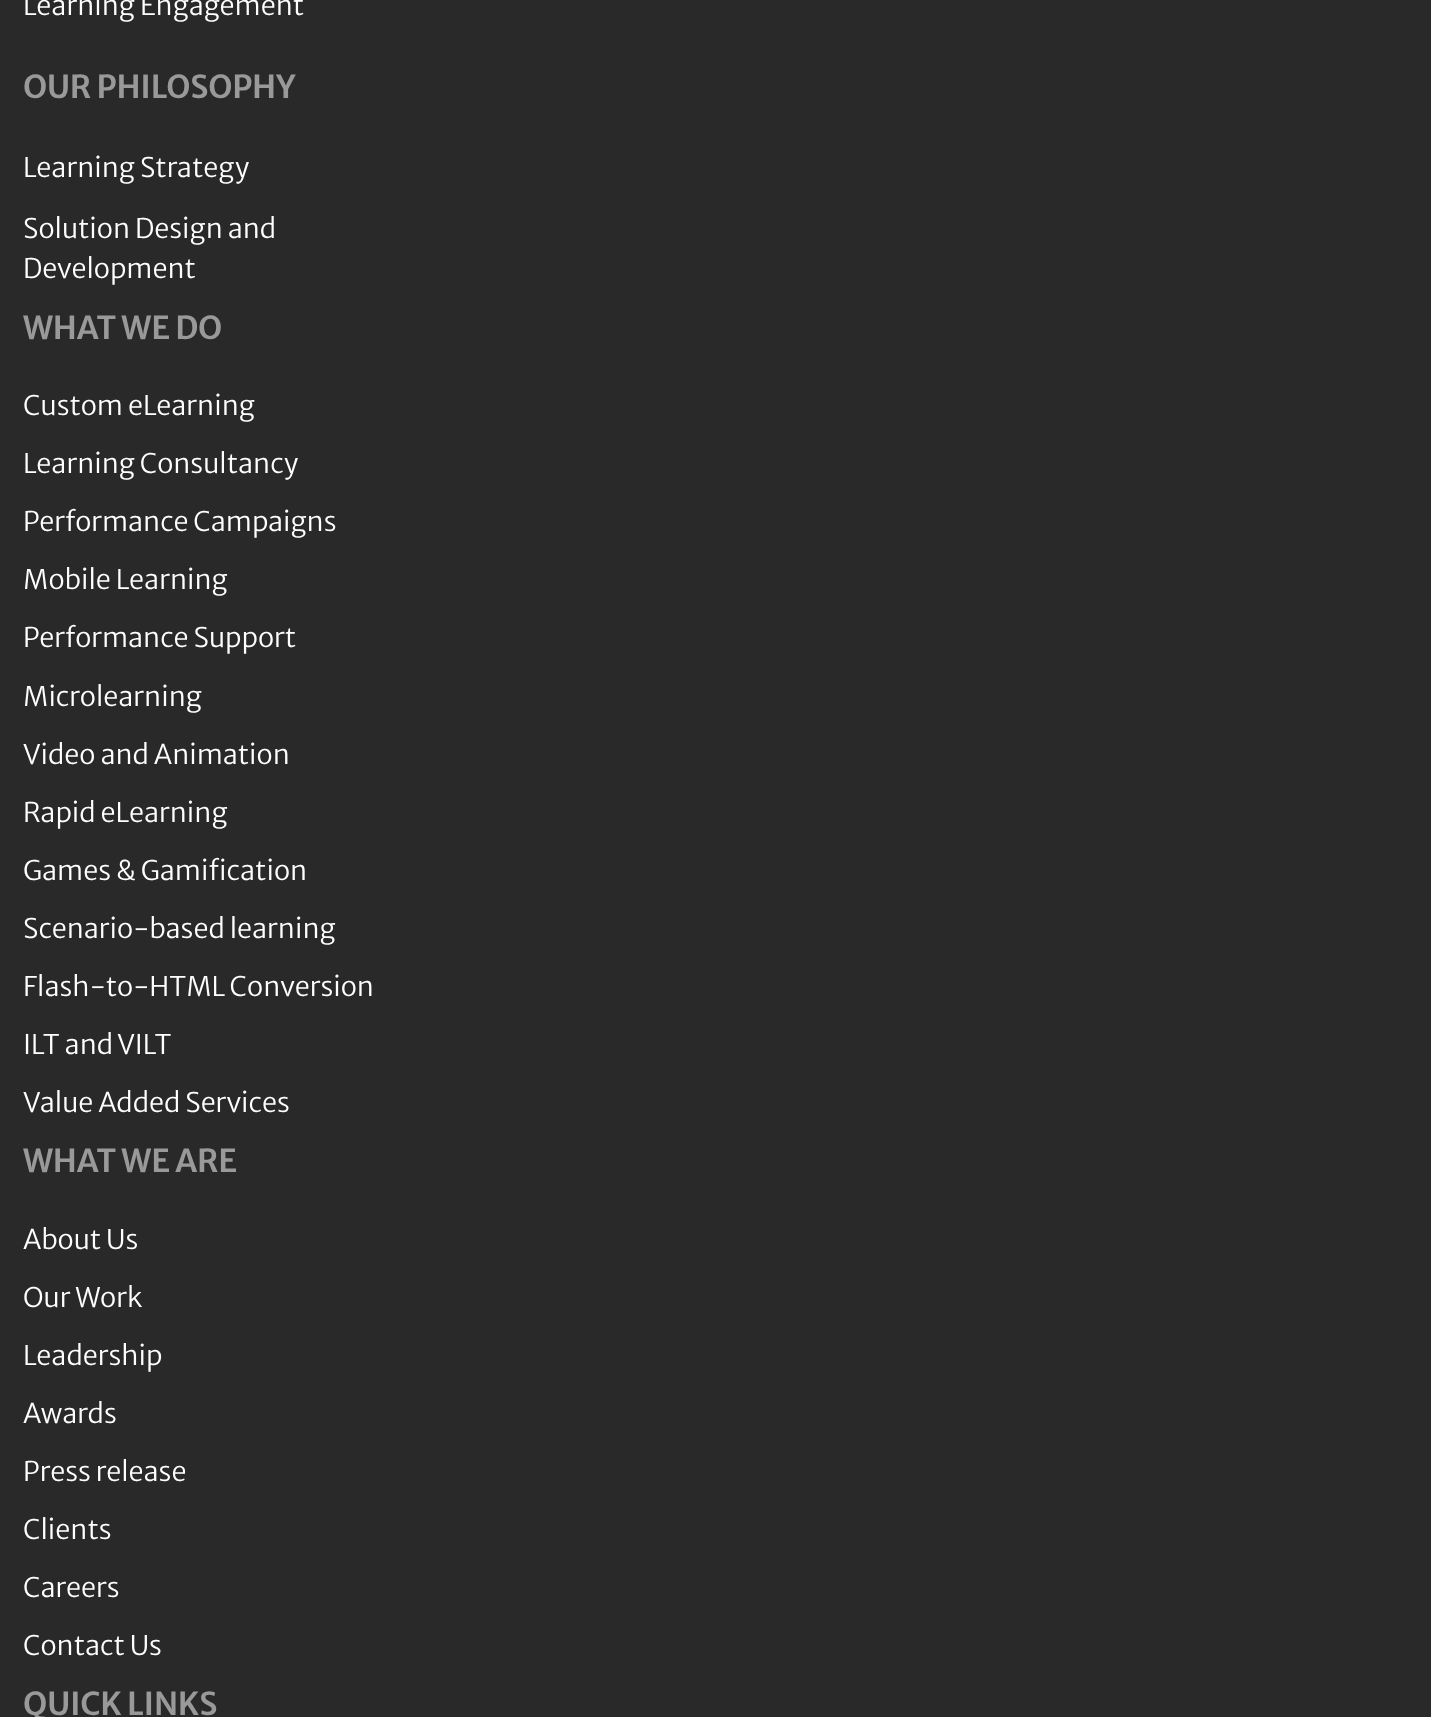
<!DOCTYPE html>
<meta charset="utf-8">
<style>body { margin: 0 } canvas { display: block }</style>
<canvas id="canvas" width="1431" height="1717"></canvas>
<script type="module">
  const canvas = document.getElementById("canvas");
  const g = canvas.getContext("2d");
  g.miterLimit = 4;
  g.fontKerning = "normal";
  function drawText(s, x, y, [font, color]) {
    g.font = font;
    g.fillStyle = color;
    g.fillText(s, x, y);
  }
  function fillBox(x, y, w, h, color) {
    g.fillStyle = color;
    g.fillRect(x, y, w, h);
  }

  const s1 = ["300 27px Merriweather Sans", "#FFFFFF"];
  const s2 = ["600 31.5px Merriweather Sans", "#999999"];

  fillBox(0, 0, 1431, 1717, "#292929");
  drawText("Learning Engagement", 23, 15, s1);
  g.letterSpacing = "-0.25px";
  drawText("OUR PHILOSOPHY", 23, 98, s2);
  g.letterSpacing = "0px";
  drawText("Learning Strategy", 23, 177, s1);
  drawText("Solution Design and", 23, 238, s1);
  drawText("Development", 23, 278, s1);
  g.letterSpacing = "-0.25px";
  drawText("WHAT WE DO", 23, 339, s2);
  g.letterSpacing = "0px";
  drawText("Custom eLearning", 23, 415, s1);
  drawText("Learning Consultancy", 23, 473, s1);
  drawText("Performance Campaigns", 23, 531, s1);
  drawText("Mobile Learning", 23, 589, s1);
  drawText("Performance Support", 23, 647, s1);
  drawText("Microlearning", 23, 706, s1);
  drawText("Video and Animation", 23, 764, s1);
  drawText("Rapid eLearning", 23, 822, s1);
  drawText("Games & Gamification", 23, 880, s1);
  drawText("Scenario-based learning", 23, 938, s1);
  drawText("Flash-to-HTML Conversion", 23, 996, s1);
  drawText("ILT and VILT", 23, 1054, s1);
  drawText("Value Added Services", 23, 1112, s1);
  g.letterSpacing = "-0.25px";
  drawText("WHAT WE ARE", 23, 1172, s2);
  g.letterSpacing = "0px";
  drawText("About Us", 23, 1249, s1);
  drawText("Our Work", 23, 1307, s1);
  drawText("Leadership", 23, 1365, s1);
  drawText("Awards", 23, 1423, s1);
  drawText("Press release", 23, 1481, s1);
  drawText("Clients", 23, 1539, s1);
  drawText("Careers", 23, 1597, s1);
  drawText("Contact Us", 23, 1655, s1);
  g.letterSpacing = "-0.25px";
  drawText("QUICK LINKS", 23, 1715, s2);
</script>
